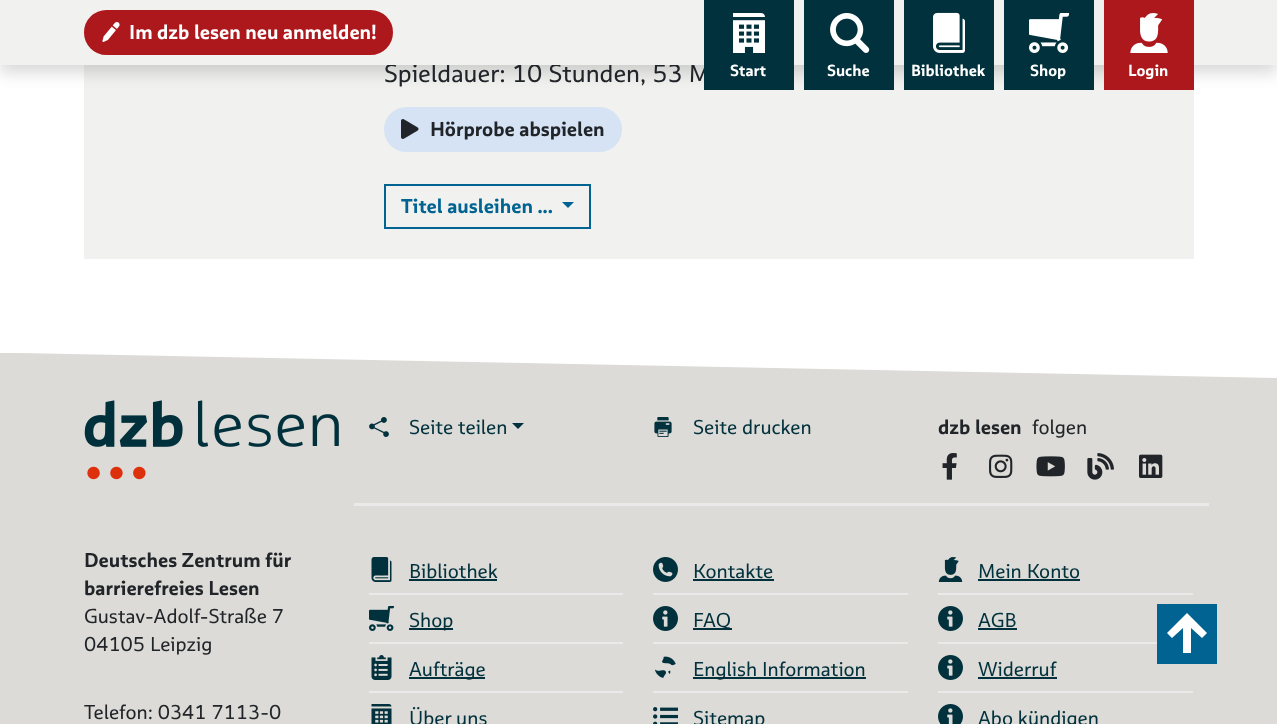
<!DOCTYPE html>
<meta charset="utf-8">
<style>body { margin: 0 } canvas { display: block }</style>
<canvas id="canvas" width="1277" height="724"></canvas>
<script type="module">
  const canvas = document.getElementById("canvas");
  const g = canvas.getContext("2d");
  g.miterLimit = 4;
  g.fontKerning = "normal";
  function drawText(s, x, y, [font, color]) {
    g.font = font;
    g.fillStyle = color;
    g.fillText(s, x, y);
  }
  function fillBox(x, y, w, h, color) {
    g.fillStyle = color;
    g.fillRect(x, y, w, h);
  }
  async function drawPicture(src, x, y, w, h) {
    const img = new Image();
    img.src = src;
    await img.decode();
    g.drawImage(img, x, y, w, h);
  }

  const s1 = ["25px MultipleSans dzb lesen", "#212529"];
  const s2 = ["bold 20px MultipleSans dzb lesen", "#FFFFFF"];
  const s3 = ["bold 16px MultipleSans dzb lesen", "#FFFFFF"];
  const s4 = ["bold 20px MultipleSans dzb lesen", "#212529"];
  const s5 = ["bold 20px MultipleSans dzb lesen", "#006391"];
  const s6 = ["20px MultipleSans dzb lesen", "#00313C"];
  const s7 = ["20px MultipleSans dzb lesen", "#212529"];

  fillBox(0, 0, 1277, 724, "#FFFFFF");
  fillBox(84, 65, 1110, 194, "#F1F1EF");
  g.fillStyle = "rgba(0, 0, 0, 0.15)";
  g.filter = "blur(8px)";
  g.beginPath();
  g.rect(0, 8, 1277, 65);
  g.fill();
  g.filter = "none";
  drawText("Spieldauer: 10 Stunden, 53 M", 384, 82, s1);
  fillBox(0, 0, 1277, 65, "#F1F1EF");
  g.fillStyle = "#AD181C";
  g.beginPath();
  g.roundRect(85, 11, 307, 43, 21.5);
  g.fill();
  g.strokeStyle = "#AD181C";
  g.lineWidth = 2;
  g.stroke();
  await drawPicture("pic1.png", 102, 22, 18, 20);
  drawText("Im dzb lesen neu anmelden!", 129, 39, s2);
  fillBox(704, 0, 90, 90, "#00313C");
  await drawPicture("pic2.png", 733, 13, 32, 40);
  drawText("Start", 730, 76, s3);
  fillBox(804, 0, 90, 90, "#00313C");
  await drawPicture("pic3.png", 830, 13, 40, 40);
  drawText("Suche", 827, 76, s3);
  fillBox(904, 0, 90, 90, "#00313C");
  await drawPicture("pic4.png", 933, 12, 32, 41);
  drawText("Bibliothek", 911, 76, s3);
  fillBox(1004, 0, 90, 90, "#00313C");
  await drawPicture("pic5.png", 1029, 13, 40, 40);
  drawText("Shop", 1030, 76, s3);
  fillBox(1104, 0, 90, 90, "#AD181C");
  await drawPicture("pic6.png", 1130, 13, 38, 40);
  drawText("Login", 1128, 76, s3);
  g.fillStyle = "#D6E3F4";
  g.beginPath();
  g.roundRect(385, 108, 236, 43, 21.5);
  g.fill();
  g.strokeStyle = "#D6E3F4";
  g.stroke();
  await drawPicture("pic7.png", 401, 119, 18, 20);
  drawText("Hörprobe abspielen", 430, 136, s4);
  g.strokeStyle = "#006391";
  g.strokeRect(385, 185, 205, 43);
  drawText("Titel ausleihen ...", 401, 213, s5);
  g.beginPath();
  g.moveTo(562, 202);
  g.lineTo(574, 202);
  g.lineTo(568, 208);
  g.closePath();
  g.fill();
  fillBox(0, 353, 1277, 371, "#DDDBD7");
  g.fillStyle = "#FFFFFF";
  g.beginPath();
  g.moveTo(20, 353);
  g.lineTo(1277, 353);
  g.lineTo(1277, 378);
  g.closePath();
  g.fill();
  await drawPicture("pic8.png", 84, 400, 255, 80);
  fillBox(354, 503, 855, 3, "#EAEAEA");
  await drawPicture("pic9.png", 369, 417, 20, 20);
  drawText("Seite teilen", 409, 434, s6);
  g.beginPath();
  g.moveTo(512, 423);
  g.lineTo(524, 423);
  g.lineTo(518, 429);
  g.closePath();
  g.fill();
  await drawPicture("pic10.png", 654, 417, 18, 20);
  drawText("Seite drucken", 693, 434, s6);
  drawText("dzb lesen", 938, 434, s4);
  drawText("folgen", 1032, 434, s7);
  await drawPicture("pic11.png", 942, 453, 15, 27);
  await drawPicture("pic12.png", 989, 454, 24, 24);
  await drawPicture("pic13.png", 1036, 456, 29, 21);
  await drawPicture("pic14.png", 1087, 453, 27, 27);
  await drawPicture("pic15.png", 1139, 454, 24, 24);
  drawText("Deutsches Zentrum für", 84, 567, s4);
  drawText("barrierefreies Lesen", 84, 595, s4);
  drawText("Gustav-Adolf-Straße 7", 84, 623, s7);
  drawText("04105 Leipzig", 84, 651, s7);
  drawText("Telefon: 0341 7113-0", 84, 719, s7);
  fillBox(369, 593, 254, 2, "#EAEAEA");
  await drawPicture("pic16.png", 371, 557, 21, 25);
  drawText("Bibliothek", 409, 578, s6);
  fillBox(409, 579, 88, 2, "#00313C");
  fillBox(653, 593, 255, 2, "#EAEAEA");
  await drawPicture("pic17.png", 653, 557, 25, 25);
  drawText("Kontakte", 693, 578, s6);
  fillBox(693, 579, 81, 2, "#00313C");
  fillBox(938, 593, 255, 2, "#EAEAEA");
  await drawPicture("pic18.png", 938, 557, 25, 25);
  drawText("Mein Konto", 978, 578, s6);
  fillBox(978, 579, 102, 2, "#00313C");
  fillBox(369, 642, 254, 2, "#EAEAEA");
  await drawPicture("pic19.png", 369, 606, 25, 25);
  fillBox(409, 628, 44, 2, "#00313C");
  drawText("Shop", 409, 627, s6);
  fillBox(653, 642, 255, 2, "#EAEAEA");
  await drawPicture("pic20.png", 653, 606, 25, 25);
  fillBox(693, 628, 39, 2, "#00313C");
  drawText("FAQ", 693, 627, s6);
  fillBox(938, 642, 219, 2, "#EAEAEA");
  await drawPicture("pic20.png", 938, 606, 25, 25);
  drawText("AGB", 978, 627, s6);
  fillBox(978, 628, 39, 2, "#00313C");
  fillBox(369, 691, 254, 2, "#EAEAEA");
  await drawPicture("pic21.png", 371, 655, 21, 25);
  fillBox(409, 677, 76, 2, "#00313C");
  drawText("Aufträge", 409, 676, s6);
  fillBox(653, 691, 255, 2, "#EAEAEA");
  await drawPicture("pic22.png", 655, 656, 21, 22);
  fillBox(693, 677, 173, 2, "#00313C");
  drawText("English Information", 693, 676, s6);
  fillBox(938, 691, 255, 2, "#EAEAEA");
  await drawPicture("pic20.png", 938, 655, 25, 25);
  drawText("Widerruf", 978, 676, s6);
  fillBox(978, 677, 79, 2, "#00313C");
  await drawPicture("pic23.png", 371, 704, 21, 20);
  drawText("Über uns", 409, 725, s6);
  await drawPicture("pic24.png", 653, 707, 25, 17);
  drawText("Sitemap", 693, 725, s6);
  await drawPicture("pic25.png", 938, 704, 25, 20);
  drawText("Abo kündigen", 978, 725, s6);
  fillBox(1157, 604, 60, 60, "#006391");
  g.fillStyle = "#FFFFFF";
  g.beginPath();
  g.moveTo(1202, 638);
  g.lineTo(1191, 628);
  g.lineTo(1191, 653);
  g.lineTo(1183, 653);
  g.lineTo(1183, 628);
  g.lineTo(1172, 638);
  g.lineTo(1167, 633);
  g.lineTo(1187, 613);
  g.lineTo(1207, 633);
  g.closePath();
  g.fill();
</script>
